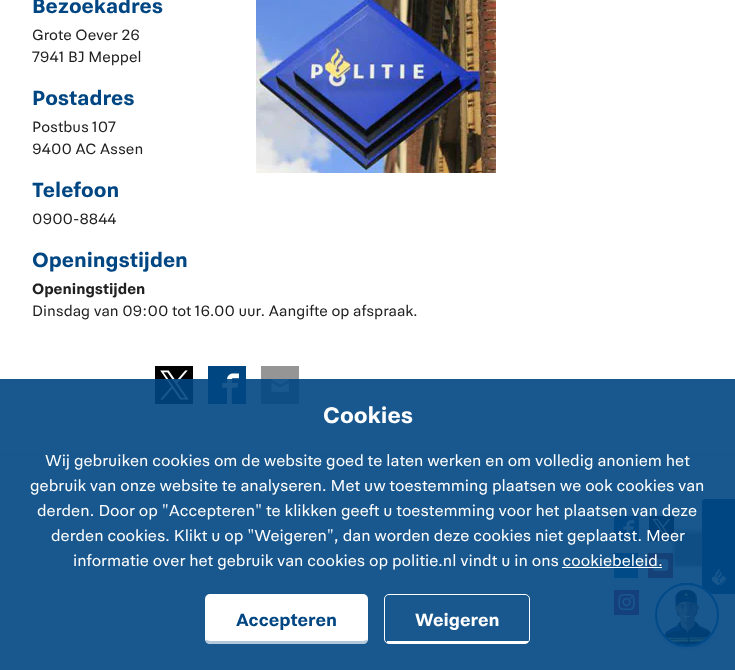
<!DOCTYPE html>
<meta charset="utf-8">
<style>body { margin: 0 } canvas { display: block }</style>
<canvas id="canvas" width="735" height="670"></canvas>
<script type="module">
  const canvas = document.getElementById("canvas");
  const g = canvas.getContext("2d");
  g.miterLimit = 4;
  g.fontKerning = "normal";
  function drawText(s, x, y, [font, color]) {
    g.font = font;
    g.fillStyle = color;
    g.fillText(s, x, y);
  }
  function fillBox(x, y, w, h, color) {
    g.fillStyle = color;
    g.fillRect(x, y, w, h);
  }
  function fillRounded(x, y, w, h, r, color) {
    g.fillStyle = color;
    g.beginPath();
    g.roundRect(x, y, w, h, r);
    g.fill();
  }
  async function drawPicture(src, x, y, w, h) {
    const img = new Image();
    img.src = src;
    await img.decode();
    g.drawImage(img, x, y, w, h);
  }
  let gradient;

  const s1 = ["bold 22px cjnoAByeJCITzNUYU", "#004682"];
  const s2 = ["16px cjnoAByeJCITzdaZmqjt", "#202020"];
  const s3 = ["bold 16px cjnoAByeJCITzNUYU", "#202020"];
  const s4 = ["bold 24px cjnoAByeJCITzNUYU", "#FFFFFF"];
  const s5 = ["17px cjnoAByeJCITzdaZmqjt", "#FFFFFF"];
  const s6 = ["bold 19px cjnoAByeJCITzNUYU", "#004682"];
  const s7 = ["bold 19px cjnoAByeJCITzNUYU", "#FFFFFF"];

  fillBox(0, 0, 735, 670, "#FFFFFF");
  drawText("Bezoekadres", 32, 13, s1);
  drawText("Grote Oever 26", 32, 40, s2);
  drawText("7941 BJ Meppel", 32, 62, s2);
  drawText("Postadres", 32, 105, s1);
  drawText("Postbus 107", 32, 132, s2);
  drawText("9400 AC Assen", 32, 154, s2);
  drawText("Telefoon", 32, 197, s1);
  drawText("0900-8844", 32, 224, s2);
  await drawPicture("pic1.png", 256, 0, 240, 173);
  drawText("Openingstijden", 32, 267, s1);
  drawText("Openingstijden", 32, 294, s3);
  drawText("Dinsdag van 09:00 tot 16.00 uur. Aangifte op afspraak.", 32, 316, s2);
  await drawPicture("pic2.png", 155, 366, 38, 38);
  fillBox(208, 366, 38, 38, "#004681");
  await drawPicture("pic3.png", 222, 373, 17, 31);
  fillBox(261, 366, 38, 38, "#959595");
  await drawPicture("pic4.png", 271, 379, 18, 13);
  gradient = g.createLinearGradient(368, 454, 368, 462);
  gradient.addColorStop(0, "#EBF0F5");
  gradient.addColorStop(1, "#FFFFFF");
  g.fillStyle = gradient;
  g.fillRect(0, 454, 735, 7);
  fillBox(614, 516, 25, 25, "#004681");
  await drawPicture("pic5.png", 623, 520, 12, 21);
  await drawPicture("pic6.png", 649, 516, 25, 25);
  fillBox(614, 553, 24, 25, "#0077B5");
  fillBox(648, 553, 25, 25, "#CD201F");
  await drawPicture("pic7.png", 652, 559, 17, 12);
  fillBox(614, 590, 25, 25, "#CD1762");
  await drawPicture("pic8.png", 618, 594, 17, 17);
  g.fillStyle = "rgba(0, 0, 0, 0.2)";
  g.filter = "blur(2.5px)";
  g.beginPath();
  g.roundRect(673, 530, 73, 36, 3);
  g.fill();
  g.filter = "none";
  g.fillStyle = "rgba(0, 0, 0, 0.12)";
  g.filter = "blur(0.5px)";
  g.beginPath();
  g.roundRect(675, 534, 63, 32, 1);
  g.fill();
  g.filter = "none";
  g.fillStyle = "rgba(0, 0, 0, 0.14)";
  g.filter = "blur(1px)";
  g.beginPath();
  g.roundRect(673, 531, 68, 36, 3);
  g.fill();
  g.filter = "none";
  g.fillStyle = "#004682";
  g.beginPath();
  g.moveTo(702, 591);
  g.lineTo(702, 502);
  g.bezierCurveTo(702, 501, 703, 499, 705, 499);
  g.lineTo(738, 499);
  g.lineTo(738, 594);
  g.lineTo(705, 594);
  g.bezierCurveTo(703, 594, 702, 593, 702, 591);
  g.closePath();
  g.fill();
  g.beginPath();
  g.moveTo(702.5, 591);
  g.lineTo(702.5, 502);
  g.bezierCurveTo(702.5, 501, 703.5, 499.5, 705, 499.5);
  g.lineTo(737.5, 499.5);
  g.lineTo(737.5, 593.5);
  g.lineTo(705, 593.5);
  g.bezierCurveTo(703.5, 593.5, 702.5, 592.5, 702.5, 591);
  g.closePath();
  g.strokeStyle = "#004682";
  g.stroke();
  await drawPicture("pic10.png", 712, 569, 14, 16);
  g.fillStyle = "rgba(0, 70, 130, 0.2)";
  g.filter = "blur(2px)";
  g.beginPath();
  g.roundRect(655, 585, 64, 64, 32);
  g.fill();
  g.filter = "none";
  g.fillStyle = "#FFFFFF";
  g.beginPath();
  g.arc(687, 615, 32, 0, Math.PI * 2);
  g.fill();
  await drawPicture("pic9.png", 664, 583, 47, 62);
  g.beginPath();
  g.arc(687, 615, 31, 0, Math.PI * 2);
  g.strokeStyle = "#0073D6";
  g.lineWidth = 2;
  g.stroke();
  fillBox(0, 379, 735, 291, "rgba(0, 70, 130, 0.9)");
  drawText("Cookies", 323, 423, s4);
  drawText("Wij gebruiken cookies om de website goed te laten werken en om volledig anoniem het", 45, 466, s5);
  drawText("gebruik van onze website te analyseren. Met uw toestemming plaatsen we ook cookies van", 30, 491, s5);
  drawText("derden. Door op \"Accepteren\" te klikken geeft u toestemming voor het plaatsen van deze", 37, 516, s5);
  drawText("derden cookies. Klikt u op \"Weigeren\", dan worden deze cookies niet geplaatst. Meer", 51, 541, s5);
  drawText("informatie over het gebruik van cookies op politie.nl vindt u in ons cookiebeleid.", 73, 566, s5);
  fillBox(562, 567, 100, 1, "#FFFFFF");
  fillRounded(205, 594, 163, 50, 5, "#FFFFFF");
  g.fillStyle = "#B3C8DA";
  g.beginPath();
  g.moveTo(210, 644);
  g.lineTo(363, 644);
  g.bezierCurveTo(365, 644, 366, 643, 367, 642);
  g.lineTo(367, 640);
  g.bezierCurveTo(366, 640, 364, 641, 363, 641);
  g.lineTo(210, 641);
  g.bezierCurveTo(209, 641, 207, 640, 206, 640);
  g.lineTo(206, 642);
  g.bezierCurveTo(207, 643, 208, 644, 210, 644);
  g.closePath();
  g.fill();
  drawText("Accepteren", 236, 626, s6);
  g.beginPath();
  g.roundRect(384.5, 594.5, 145, 49, 4.5);
  g.strokeStyle = "#FFFFFF";
  g.lineWidth = 1;
  g.stroke();
  fillBox(387, 641, 141, 2, "#FFFFFF");
  drawText("Weigeren", 415, 626, s7);
</script>
